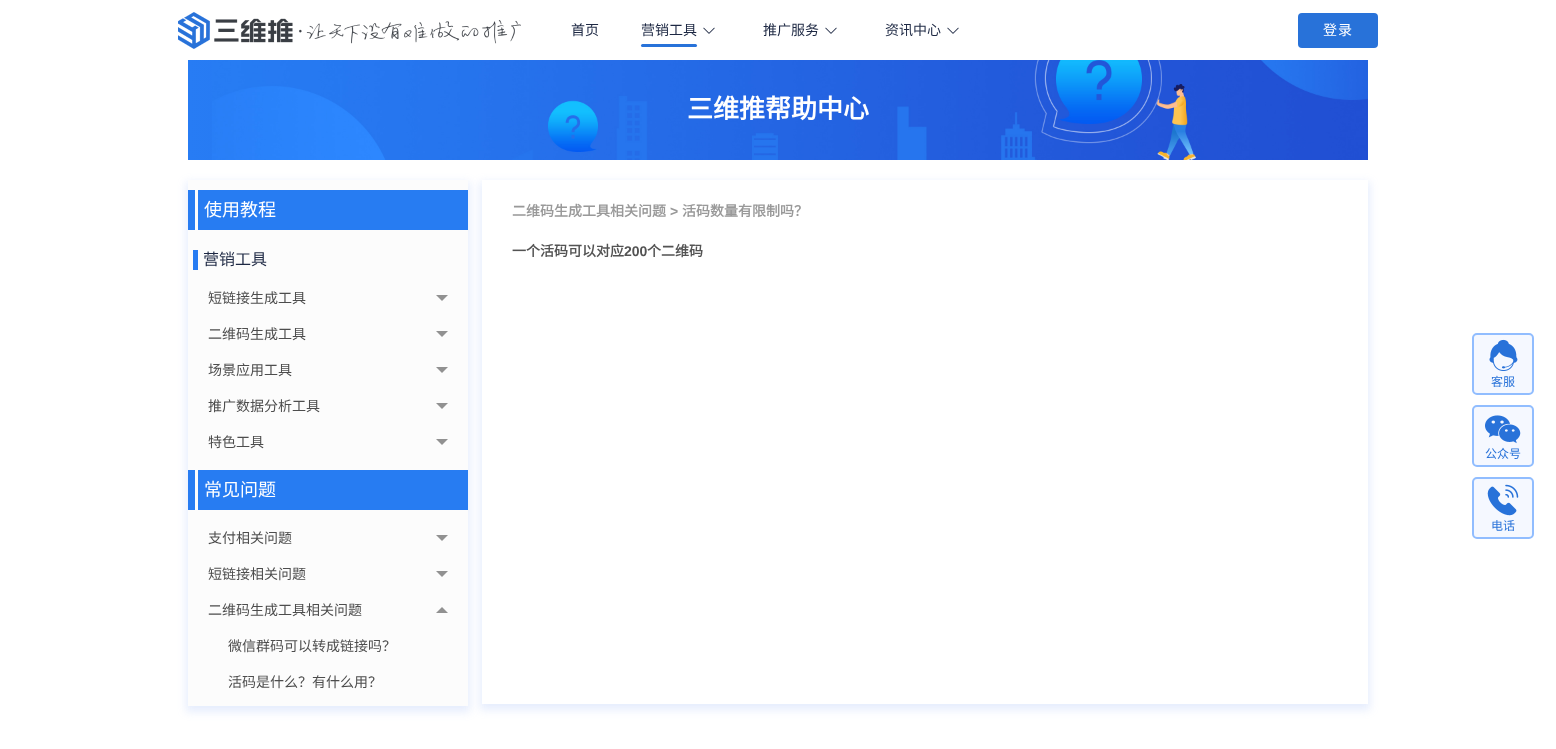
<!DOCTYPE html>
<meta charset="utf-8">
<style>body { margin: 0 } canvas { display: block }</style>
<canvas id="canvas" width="1556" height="749"></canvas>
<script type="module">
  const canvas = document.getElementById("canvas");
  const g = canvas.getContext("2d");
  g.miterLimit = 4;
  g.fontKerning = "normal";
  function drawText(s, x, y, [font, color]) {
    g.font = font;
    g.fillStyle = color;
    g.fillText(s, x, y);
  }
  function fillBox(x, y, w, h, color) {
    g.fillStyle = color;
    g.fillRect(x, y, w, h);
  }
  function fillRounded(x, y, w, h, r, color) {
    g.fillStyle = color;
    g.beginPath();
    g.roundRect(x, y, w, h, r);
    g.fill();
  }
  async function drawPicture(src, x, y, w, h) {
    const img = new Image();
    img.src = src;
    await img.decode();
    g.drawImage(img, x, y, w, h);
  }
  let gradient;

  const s1 = ["14px Noto Sans CJK SC", "#1D2843"];
  const s2 = ["14px Noto Sans CJK SC", "#FFFFFF"];
  const s3 = ["bold 26px Noto Sans CJK SC", "#FFFFFF"];
  const s4 = ["18px Noto Sans CJK SC", "#FFFFFF"];
  const s5 = ["16px Noto Sans CJK SC", "#1D2843"];
  const s6 = ["14px Noto Sans CJK SC", "#4D4D4D"];
  const s7 = ["bold 14px Noto Sans CJK SC", "#999999"];
  const s8 = ["bold 14px Liberation Sans", "#999999"];
  const s9 = ["bold 14px Noto Sans CJK SC", "#535353"];
  const s10 = ["bold 14px Liberation Sans", "#535353"];
  const s11 = ["12px Noto Sans CJK SC", "#2872D9"];

  fillBox(0, 0, 1556, 749, "#FFFFFF");
  await drawPicture("pic1.png", 178, 12, 343, 37);
  drawText("首页", 571, 35, s1);
  drawText("营销工具", 641, 35, s1);
  await drawPicture("pic2.png", 703, 27, 12, 7);
  fillRounded(641, 44, 56, 3, 1.5, "#2872D9");
  drawText("推广服务", 763, 35, s1);
  await drawPicture("pic2.png", 825, 27, 12, 7);
  drawText("资讯中心", 885, 35, s1);
  await drawPicture("pic2.png", 947, 27, 12, 7);
  fillRounded(1298, 13, 80, 35, 4, "#2872D9");
  g.letterSpacing = "1px";
  drawText("登录", 1323, 35, s2);
  gradient = g.createLinearGradient(188, 110, 1368, 110);
  gradient.addColorStop(0, "#277CF4");
  gradient.addColorStop(1, "#214FD4");
  g.fillStyle = gradient;
  g.fillRect(188, 60, 24, 100);
  await drawPicture("pic3.png", 212, 60, 1156, 100);
  g.letterSpacing = "0px";
  drawText("三维推帮助中心", 687, 118, s3);
  g.fillStyle = "rgba(132, 163, 246, 0.2)";
  g.filter = "blur(4px)";
  g.beginPath();
  g.rect(186, 182, 284, 530);
  g.fill();
  g.filter = "none";
  g.save();
  g.beginPath();
  g.moveTo(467, 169);
  g.lineTo(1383, 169);
  g.lineTo(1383, 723);
  g.lineTo(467, 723);
  g.closePath();
  g.moveTo(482, 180);
  g.lineTo(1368, 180);
  g.lineTo(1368, 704);
  g.lineTo(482, 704);
  g.closePath();
  g.clip("evenodd");
  g.filter = "blur(4px)";
  g.beginPath();
  g.rect(480, 182, 890, 528);
  g.fill();
  g.filter = "none";
  g.restore();
  fillBox(188, 180, 280, 526, "#FCFCFC");
  fillBox(188, 190, 7, 40, "#277CF2");
  fillBox(198, 190, 270, 40, "#277CF2");
  drawText("使用教程", 204, 216, s4);
  fillBox(193, 250, 5, 20, "#277CF2");
  drawText("营销工具", 203, 265, s5);
  drawText("短链接生成工具", 208, 303, s6);
  g.fillStyle = "#919191";
  g.beginPath();
  g.moveTo(436, 295);
  g.lineTo(448, 295);
  g.lineTo(442, 301);
  g.closePath();
  g.fill();
  drawText("二维码生成工具", 208, 339, s6);
  g.fillStyle = "#919191";
  g.beginPath();
  g.moveTo(436, 331);
  g.lineTo(448, 331);
  g.lineTo(442, 337);
  g.closePath();
  g.fill();
  drawText("场景应用工具", 208, 375, s6);
  g.fillStyle = "#919191";
  g.beginPath();
  g.moveTo(436, 367);
  g.lineTo(448, 367);
  g.lineTo(442, 373);
  g.closePath();
  g.fill();
  drawText("推广数据分析工具", 208, 411, s6);
  g.fillStyle = "#919191";
  g.beginPath();
  g.moveTo(436, 403);
  g.lineTo(448, 403);
  g.lineTo(442, 409);
  g.closePath();
  g.fill();
  drawText("特色工具", 208, 447, s6);
  g.fillStyle = "#919191";
  g.beginPath();
  g.moveTo(436, 439);
  g.lineTo(448, 439);
  g.lineTo(442, 445);
  g.closePath();
  g.fill();
  fillBox(188, 470, 7, 40, "#277CF2");
  fillBox(198, 470, 270, 40, "#277CF2");
  drawText("常见问题", 204, 496, s4);
  drawText("支付相关问题", 208, 543, s6);
  g.fillStyle = "#919191";
  g.beginPath();
  g.moveTo(436, 535);
  g.lineTo(448, 535);
  g.lineTo(442, 541);
  g.closePath();
  g.fill();
  drawText("短链接相关问题", 208, 579, s6);
  g.fillStyle = "#919191";
  g.beginPath();
  g.moveTo(436, 571);
  g.lineTo(448, 571);
  g.lineTo(442, 577);
  g.closePath();
  g.fill();
  drawText("二维码生成工具相关问题", 208, 615, s6);
  g.fillStyle = "#919191";
  g.beginPath();
  g.moveTo(448, 613);
  g.lineTo(436, 613);
  g.lineTo(442, 607);
  g.closePath();
  g.fill();
  drawText("微信群码可以转成链接吗？", 228, 651, s6);
  drawText("活码是什么？有什么用？", 228, 687, s6);
  drawText("二维码生成工具相关问题", 512, 216, s7);
  drawText(">", 670, 216, s8);
  drawText("活码数量有限制吗？", 682, 216, s7);
  drawText("一个活码可以对应", 512, 256, s9);
  drawText("200", 624, 256, s10);
  drawText("个二维码", 647, 256, s9);
  g.fillStyle = "#F5F8FF";
  g.beginPath();
  g.roundRect(1473, 334, 60, 60, 4);
  g.fill();
  g.strokeStyle = "#91BDFF";
  g.lineWidth = 2;
  g.stroke();
  await drawPicture("pic4.png", 1489, 339, 29, 32);
  drawText("客服", 1491, 386, s11);
  g.fillStyle = "#F5F8FF";
  g.beginPath();
  g.roundRect(1473, 406, 60, 60, 4);
  g.fill();
  g.stroke();
  await drawPicture("pic5.png", 1485, 415, 36, 29);
  drawText("公众号", 1485, 458, s11);
  g.fillStyle = "#F5F8FF";
  g.beginPath();
  g.roundRect(1473, 478, 60, 60, 4);
  g.fill();
  g.stroke();
  await drawPicture("pic6.png", 1487, 484, 32, 32);
  drawText("电话", 1491, 530, s11);
</script>
